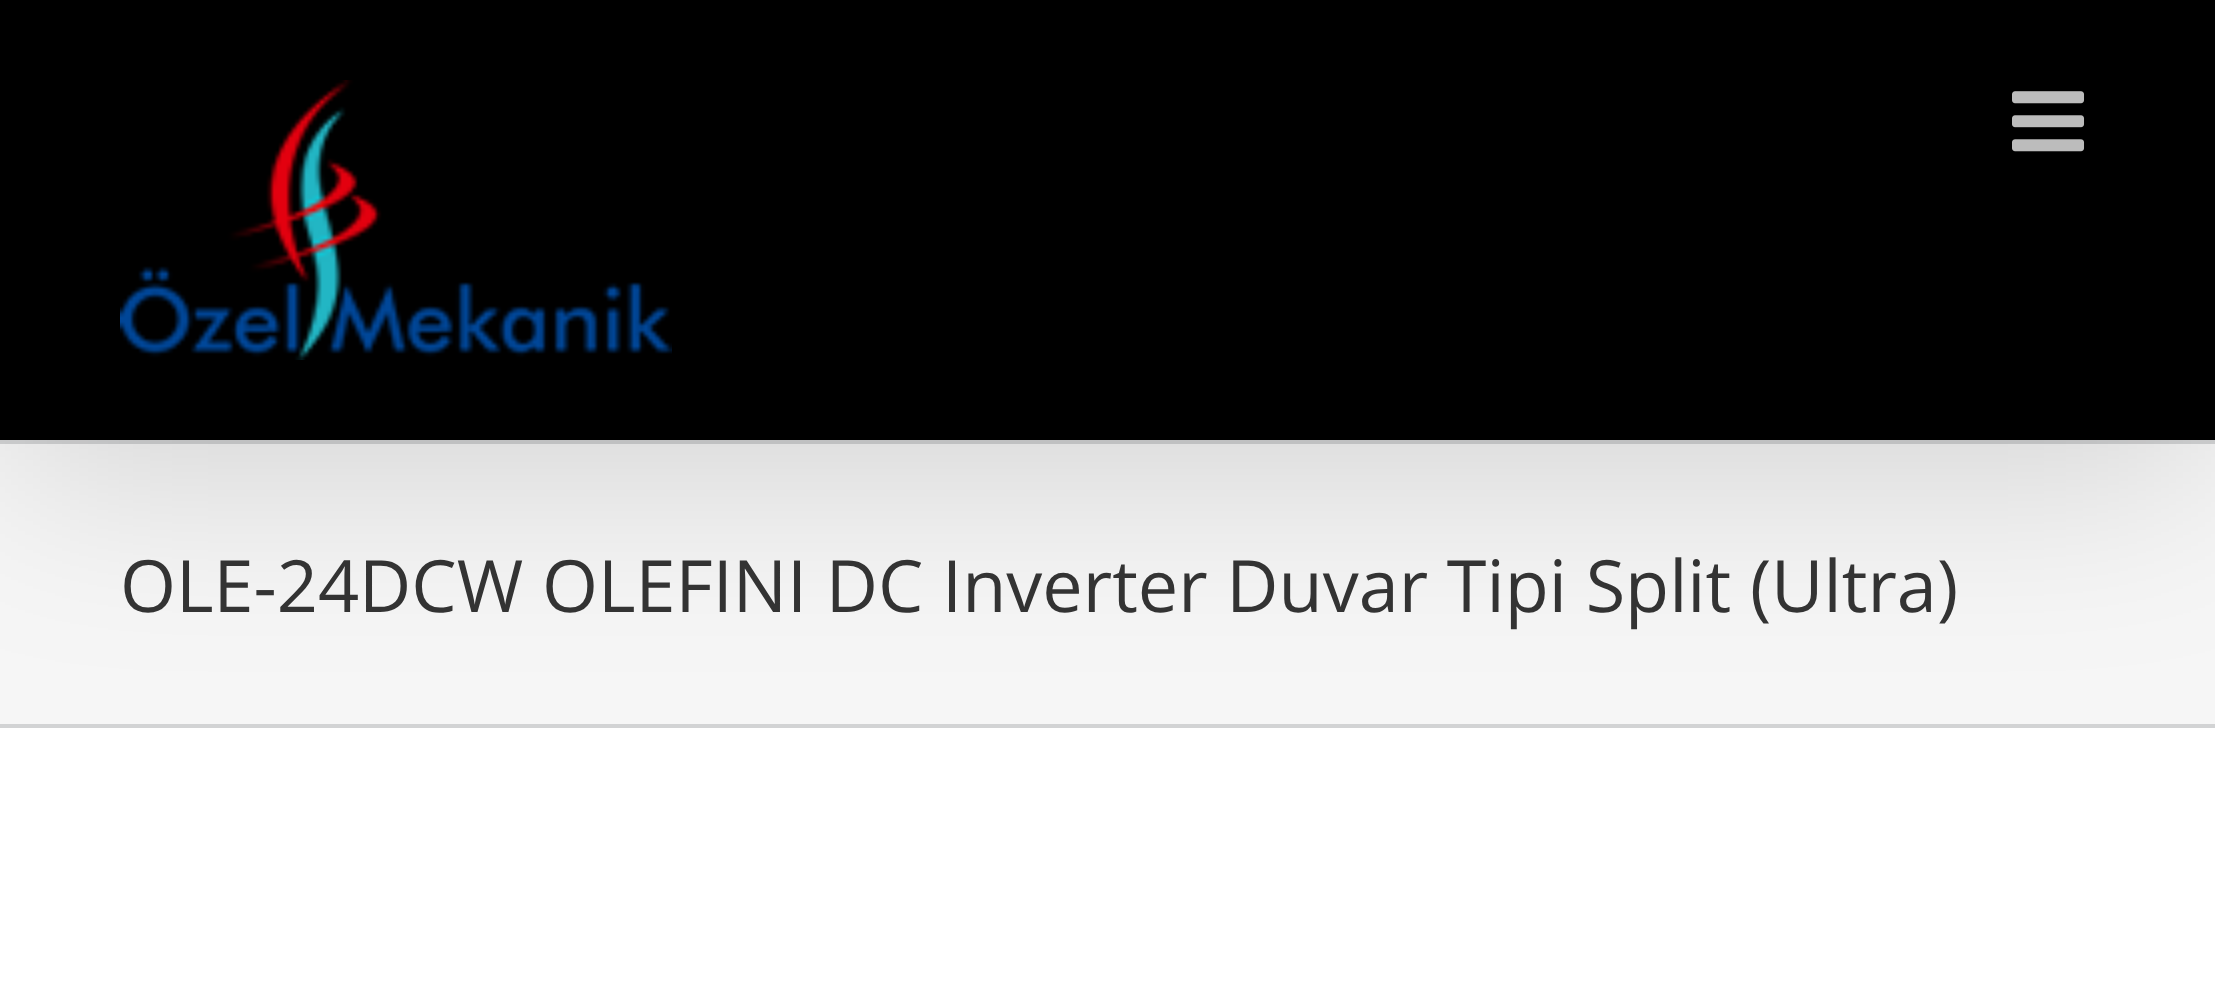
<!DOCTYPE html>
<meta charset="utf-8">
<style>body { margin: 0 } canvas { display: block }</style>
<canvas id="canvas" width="2215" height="994"></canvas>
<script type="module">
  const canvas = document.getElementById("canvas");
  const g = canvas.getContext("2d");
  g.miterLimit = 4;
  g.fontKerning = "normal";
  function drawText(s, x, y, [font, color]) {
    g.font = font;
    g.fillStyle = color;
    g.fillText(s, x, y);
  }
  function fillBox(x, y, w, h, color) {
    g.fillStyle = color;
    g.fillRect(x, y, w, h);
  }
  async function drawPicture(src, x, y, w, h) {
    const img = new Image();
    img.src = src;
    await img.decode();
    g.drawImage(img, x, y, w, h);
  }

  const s1 = ["72px Open Sans", "#333333"];

  fillBox(0, 0, 2215, 994, "#FFFFFF");
  fillBox(0, 444, 2215, 280, "#F6F6F6");
  fillBox(0, 440, 2215, 4, "#D2D3D4");
  fillBox(0, 724, 2215, 4, "#D2D3D4");
  g.fillStyle = "rgba(0, 0, 0, 0.14)";
  g.filter = "blur(100px)";
  g.beginPath();
  g.rect(8, 48, 2200, 424);
  g.fill();
  g.filter = "none";
  fillBox(0, 0, 2215, 440, "#000000");
  await drawPicture("pic1.png", 120, 80, 552, 280);
  await drawPicture("pic2.png", 2012, 91, 73, 61);
  drawText("OLE-24DCW OLEFINI DC Inverter Duvar Tipi Split (Ultra)", 120, 612, s1);
</script>
